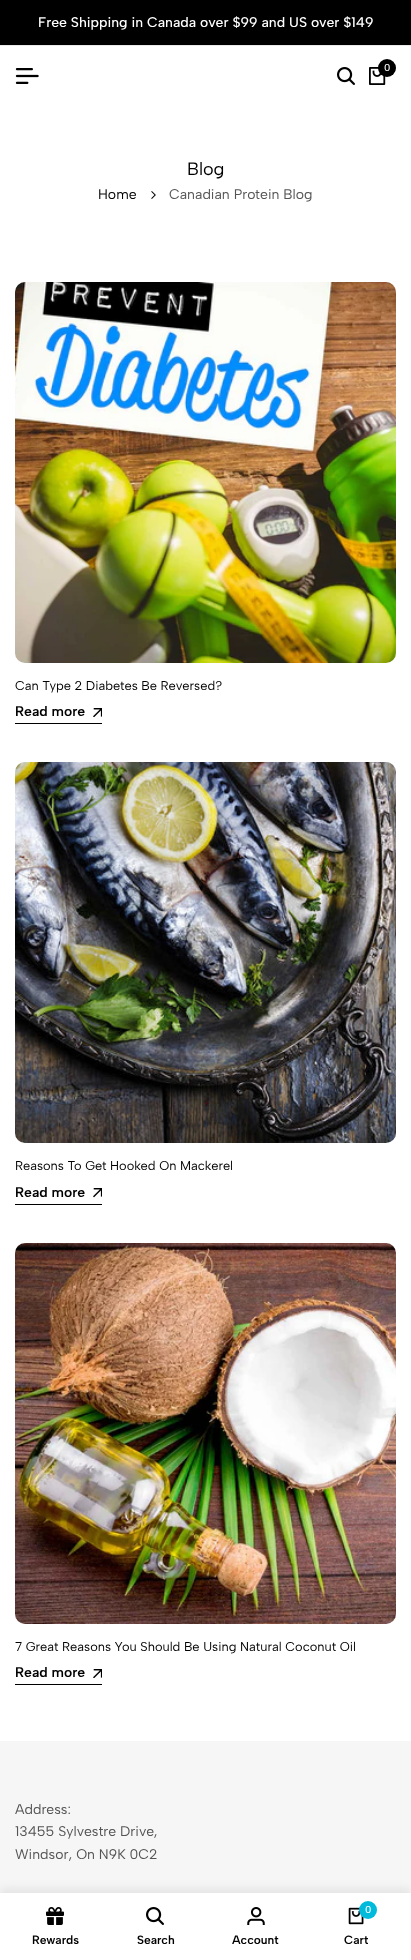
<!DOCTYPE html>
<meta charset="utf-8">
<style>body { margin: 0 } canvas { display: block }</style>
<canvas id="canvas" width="411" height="1960"></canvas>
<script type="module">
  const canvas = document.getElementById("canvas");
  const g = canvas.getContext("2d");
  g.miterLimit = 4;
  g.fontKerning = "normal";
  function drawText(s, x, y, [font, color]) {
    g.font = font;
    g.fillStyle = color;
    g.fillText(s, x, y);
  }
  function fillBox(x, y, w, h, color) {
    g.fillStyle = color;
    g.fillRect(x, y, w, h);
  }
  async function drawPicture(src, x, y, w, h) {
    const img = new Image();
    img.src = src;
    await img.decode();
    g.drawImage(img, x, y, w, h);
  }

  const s1 = ["500 14px Albert Sans", "#FFFFFF"];
  const s2 = ["500 10px Albert Sans", "#FFFFFF"];
  const s3 = ["18px Albert Sans", "#000000"];
  const s4 = ["14px Albert Sans", "#000000"];
  const s5 = ["14px Albert Sans", "#545454"];
  const s6 = ["12.8px Albert Sans", "#000000"];
  const s7 = ["600 14px Albert Sans", "#000000"];
  const s8 = ["600 12px Albert Sans", "#000000"];

  fillBox(0, 0, 411, 1960, "#FFFFFF");
  fillBox(0, 0, 411, 45, "#000000");
  fillBox(0, 45, 411, 1, "#EBEBEB");
  drawText("Free Shipping in Canada over $99 and US over $149", 38, 27, s1);
  await drawPicture("pic1.png", 15, 68, 24, 16);
  await drawPicture("pic2.png", 337, 67, 18, 18);
  await drawPicture("pic3.png", 369, 67, 17, 18);
  g.fillStyle = "#000000";
  g.beginPath();
  g.arc(387, 68, 9, 0, Math.PI * 2);
  g.fill();
  drawText("0", 384, 71, s2);
  drawText("Blog", 187, 175, s3);
  drawText("Home", 98, 199, s4);
  await drawPicture("pic4.png", 151, 191, 5, 8);
  drawText("Canadian Protein Blog", 169, 199, s5);
  await drawPicture("pic5.png", 15, 282, 381, 381);
  drawText("Can Type 2 Diabetes Be Reversed?", 15, 690, s6);
  drawText("Read more", 15, 716, s7);
  await drawPicture("pic6.png", 93, 708, 9, 9);
  fillBox(15, 723, 87, 1, "#000000");
  await drawPicture("pic7.png", 15, 762, 381, 381);
  drawText("Reasons To Get Hooked On Mackerel", 15, 1170, s6);
  drawText("Read more", 15, 1197, s7);
  await drawPicture("pic8.png", 93, 1188, 9, 10);
  fillBox(15, 1204, 87, 1, "#000000");
  await drawPicture("pic9.png", 15, 1243, 381, 381);
  drawText("7 Great Reasons You Should Be Using Natural Coconut Oil", 15, 1651, s6);
  drawText("Read more", 15, 1677, s7);
  await drawPicture("pic6.png", 93, 1669, 9, 9);
  fillBox(15, 1684, 87, 1, "#000000");
  fillBox(0, 1741, 411, 152, "#F6F6F6");
  drawText("Address:", 15, 1814, s5);
  drawText("13455 Sylvestre Drive,", 15, 1836, s5);
  drawText("Windsor, On N9K 0C2", 15, 1859, s5);
  g.fillStyle = "rgba(0, 0, 0, 0.08)";
  g.filter = "blur(5px)";
  g.beginPath();
  g.rect(0, 1889, 411, 67);
  g.fill();
  g.filter = "none";
  fillBox(0, 1893, 411, 67, "#FFFFFF");
  await drawPicture("pic10.png", 46, 1907, 18, 18);
  drawText("Rewards", 32, 1944, s8);
  await drawPicture("pic2.png", 146, 1907, 18, 18);
  drawText("Search", 137, 1944, s8);
  await drawPicture("pic11.png", 247, 1907, 18, 18);
  drawText("Account", 232, 1944, s8);
  await drawPicture("pic12.png", 348, 1907, 16, 18);
  g.fillStyle = "#00BADB";
  g.beginPath();
  g.arc(368, 1910, 9, 0, Math.PI * 2);
  g.fill();
  drawText("0", 365, 1913, s2);
  drawText("Cart", 344, 1944, s8);
</script>
